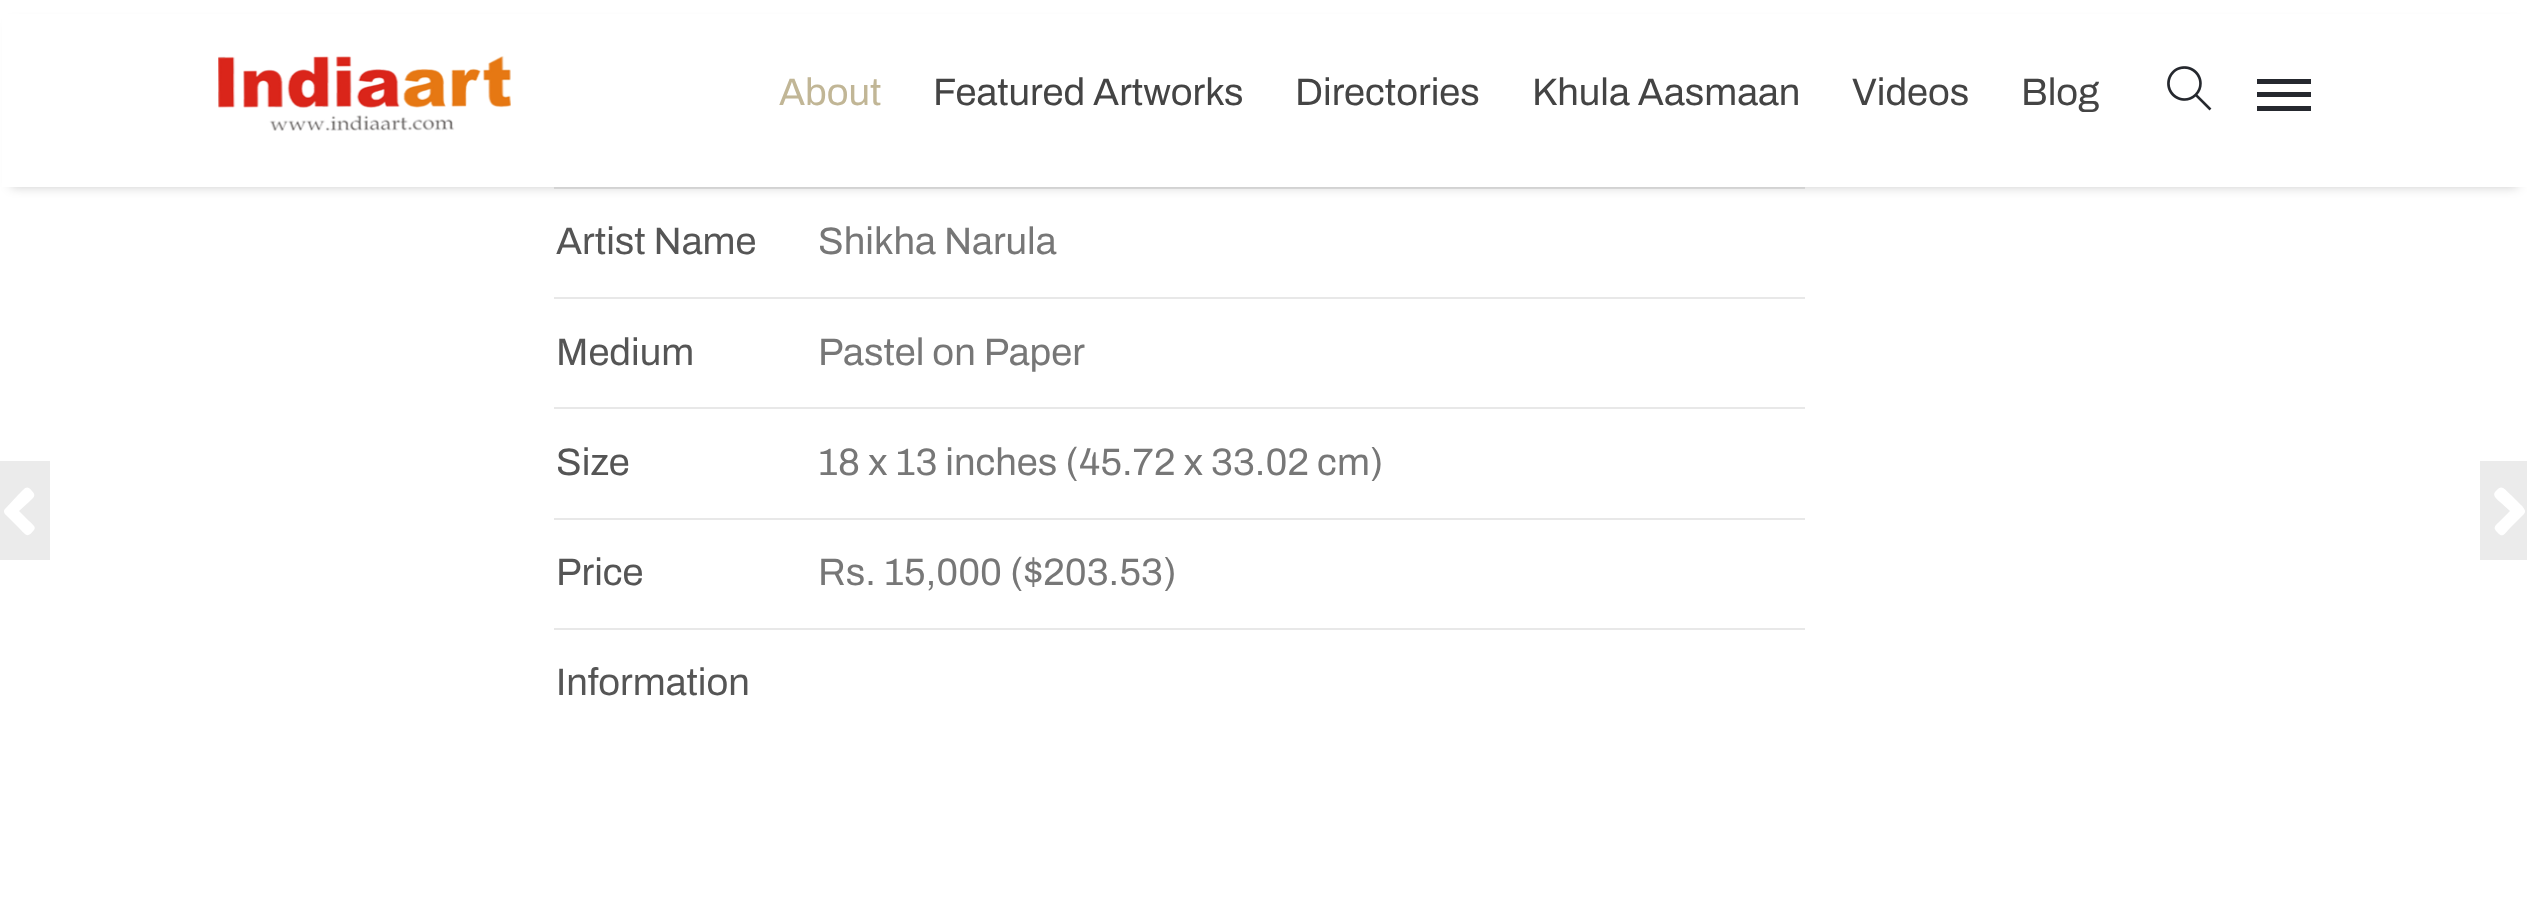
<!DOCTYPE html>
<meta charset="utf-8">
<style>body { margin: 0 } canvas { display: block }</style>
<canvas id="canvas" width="2527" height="922"></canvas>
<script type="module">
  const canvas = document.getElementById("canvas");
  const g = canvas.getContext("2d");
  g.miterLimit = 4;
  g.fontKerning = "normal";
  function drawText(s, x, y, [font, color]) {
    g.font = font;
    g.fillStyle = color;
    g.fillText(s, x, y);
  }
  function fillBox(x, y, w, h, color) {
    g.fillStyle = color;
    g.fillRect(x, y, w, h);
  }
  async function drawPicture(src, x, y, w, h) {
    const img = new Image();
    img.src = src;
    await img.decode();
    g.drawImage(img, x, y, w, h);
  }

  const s1 = ["38.25px Archivo", "#C1B696"];
  const s2 = ["38.25px Archivo", "#444444"];
  const s3 = ["38.25px Archivo", "#555555"];
  const s4 = ["38.25px Archivo", "#777777"];

  fillBox(0, 0, 2527, 922, "#FFFFFF");
  fillBox(554, 187, 1251, 2, "#E8E8E8");
  g.fillStyle = "rgba(0, 0, 0, 0.2)";
  g.filter = "blur(5.5px)";
  g.beginPath();
  g.rect(11, 23, 2507, 164);
  g.fill();
  g.filter = "none";
  fillBox(2, 14, 2525, 173, "#FFFFFF");
  await drawPicture("pic1.png", 218, 56, 293, 75);
  drawText("About", 779, 105, s1);
  drawText("Featured Artworks", 933, 105, s2);
  drawText("Directories", 1295, 105, s2);
  drawText("Khula Aasmaan", 1532, 105, s2);
  drawText("Videos", 1852, 105, s2);
  drawText("Blog", 2021, 105, s2);
  await drawPicture("pic2.png", 2167, 66, 45, 45);
  fillBox(2257, 79, 54, 5, "#25282E");
  fillBox(2257, 92, 54, 5, "#25282E");
  fillBox(2257, 106, 54, 5, "#25282E");
  fillBox(0, 461, 50, 99, "#EBEBEB");
  g.fillStyle = "#FFFFFF";
  g.beginPath();
  g.moveTo(5, 509);
  g.lineTo(18, 495);
  g.bezierCurveTo(25, 489, 26, 484, 32, 491);
  g.bezierCurveTo(37, 496, 33, 498, 29, 502);
  g.lineTo(19, 511);
  g.lineTo(29, 521);
  g.bezierCurveTo(31, 523, 37, 527, 34, 530);
  g.bezierCurveTo(27, 539, 26, 535, 18, 527);
  g.lineTo(8, 517);
  g.bezierCurveTo(6, 515, 2, 512, 5, 509);
  g.closePath();
  g.fill();
  drawText("Artist Name", 556, 254, s3);
  drawText("Shikha Narula", 818, 254, s4);
  drawText("Medium", 556, 365, s3);
  fillBox(554, 297, 1251, 2, "#E8E8E8");
  drawText("Pastel on Paper", 818, 365, s4);
  drawText("Size", 556, 475, s3);
  fillBox(554, 407, 1251, 2, "#E8E8E8");
  drawText("18 x 13 inches (45.72 x 33.02 cm)", 818, 475, s4);
  drawText("Price", 556, 585, s3);
  fillBox(554, 518, 1251, 2, "#E8E8E8");
  drawText("Rs. 15,000 ($203.53)", 818, 585, s4);
  fillBox(554, 628, 1251, 2, "#E8E8E8");
  drawText("Information", 556, 695, s3);
  fillBox(2480, 461, 47, 99, "#EBEBEB");
  g.fillStyle = "#FFFFFF";
  g.beginPath();
  g.moveTo(2524, 514);
  g.lineTo(2511, 527);
  g.bezierCurveTo(2504, 534, 2503, 539, 2497, 532);
  g.bezierCurveTo(2492, 527, 2496, 525, 2500, 521);
  g.lineTo(2510, 511);
  g.lineTo(2500, 502);
  g.bezierCurveTo(2498, 500, 2492, 496, 2495, 492);
  g.bezierCurveTo(2502, 484, 2503, 488, 2511, 495);
  g.lineTo(2521, 505);
  g.bezierCurveTo(2523, 507, 2527, 511, 2524, 514);
  g.closePath();
  g.fill();
</script>
